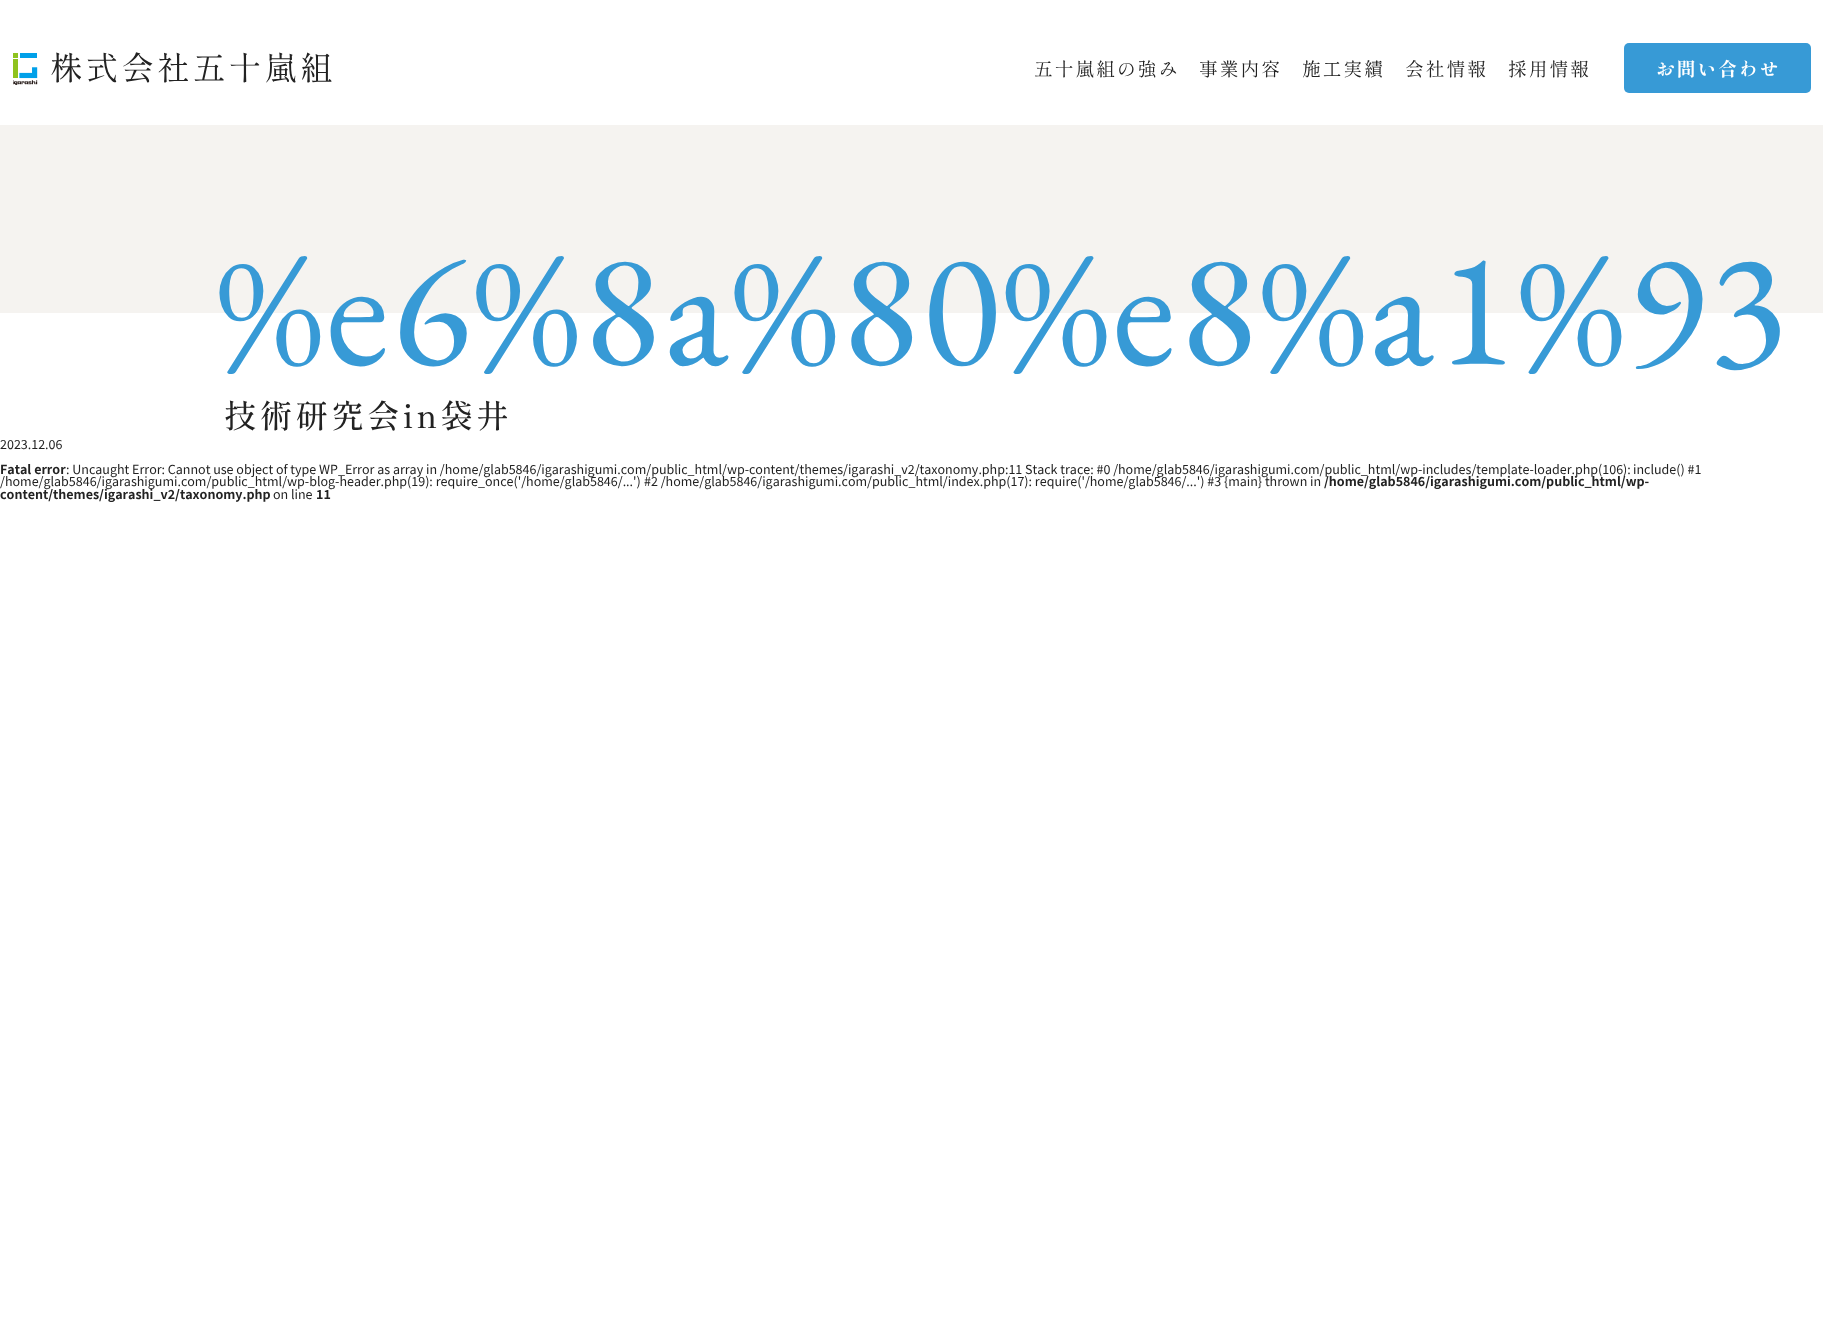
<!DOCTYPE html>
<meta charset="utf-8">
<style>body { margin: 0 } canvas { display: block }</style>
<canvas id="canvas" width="1823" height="1327"></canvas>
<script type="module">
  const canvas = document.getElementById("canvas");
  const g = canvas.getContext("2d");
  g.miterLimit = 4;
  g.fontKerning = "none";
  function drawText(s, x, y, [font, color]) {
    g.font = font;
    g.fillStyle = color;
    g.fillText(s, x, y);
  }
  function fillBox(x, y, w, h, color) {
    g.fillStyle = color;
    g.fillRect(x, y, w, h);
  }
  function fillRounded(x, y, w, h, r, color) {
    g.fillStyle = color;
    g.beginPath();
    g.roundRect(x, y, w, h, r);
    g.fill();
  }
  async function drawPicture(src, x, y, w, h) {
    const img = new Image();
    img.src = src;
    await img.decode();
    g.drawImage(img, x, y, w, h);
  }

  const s1 = ["32.5px Shippori Mincho", "#222222"];
  const s2 = ["18.75px Shippori Mincho", "#222222"];
  const s3 = ["bold 18.75px Shippori Mincho", "#FFFFFF"];
  const s4 = ["162.5px EB Garamond", "#379AD6"];
  const s5 = ["500 32.5px Shippori Mincho", "#222222"];
  const s6 = ["12.5px Noto Sans JP", "#222222"];
  const s7 = ["bold 12.5px Noto Sans JP", "#222222"];

  fillBox(0, 0, 1823, 1327, "#FFFFFF");
  await drawPicture("pic1.png", 13, 53, 25, 32);
  g.letterSpacing = "3.25px";
  drawText("株式会社五十嵐組", 50, 80, s1);
  g.letterSpacing = "2px";
  drawText("五十嵐組の強み", 1034, 76, s2);
  drawText("事業内容", 1199, 76, s2);
  drawText("施工実績", 1302, 76, s2);
  drawText("会社情報", 1405, 76, s2);
  drawText("採用情報", 1508, 76, s2);
  fillRounded(1624, 43, 187, 50, 5, "#379AD6");
  drawText("お問い合わせ", 1656, 76, s3);
  fillBox(0, 125, 1823, 188, "#F5F3F0");
  g.letterSpacing = "3.25px";
  drawText("%e6%8a%80%e8%a1%93", 217, 364, s4);
  drawText("技術研究会in袋井", 224, 428, s5);
  g.letterSpacing = "0px";
  drawText("2023.12.06", 0, 449, s6);
  drawText("Fatal error", 0, 474, s7);
  drawText(": Uncaught Error: Cannot use object of type WP_Error as array in /home/glab5846/igarashigumi.com/public_html/wp-content/themes/igarashi_v2/taxonomy.php:11", 66, 474, s6);
  drawText("Stack trace: #0 /home/glab5846/igarashigumi.com/public_html/wp-includes/template-loader.php(106):", 1025, 474, s6);
  drawText("include() #1", 1633, 474, s6);
  drawText("/home/glab5846/igarashigumi.com/public_html/wp-blog-header.php(19): require_once('/home/glab5846/...')", 0, 486, s6);
  drawText("#2 /home/glab5846/igarashigumi.com/public_html/index.php(17): require('/home/glab5846/...') #3 {main} thrown in", 644, 486, s6);
  drawText("/home/glab5846/igarashigumi.com/public_html/wp-", 1324, 486, s7);
  drawText("content/themes/igarashi_v2/taxonomy.php", 0, 499, s7);
  drawText("on line", 273, 499, s6);
  drawText("11", 316, 499, s7);
</script>
